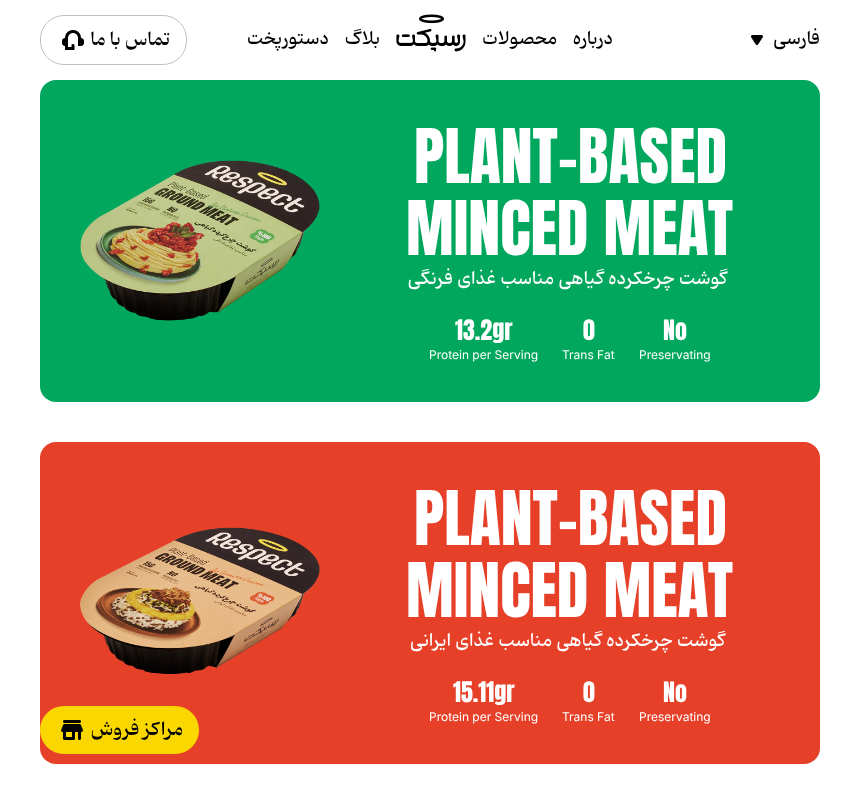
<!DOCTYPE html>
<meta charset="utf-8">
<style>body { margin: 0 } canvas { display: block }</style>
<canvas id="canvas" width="860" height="794"></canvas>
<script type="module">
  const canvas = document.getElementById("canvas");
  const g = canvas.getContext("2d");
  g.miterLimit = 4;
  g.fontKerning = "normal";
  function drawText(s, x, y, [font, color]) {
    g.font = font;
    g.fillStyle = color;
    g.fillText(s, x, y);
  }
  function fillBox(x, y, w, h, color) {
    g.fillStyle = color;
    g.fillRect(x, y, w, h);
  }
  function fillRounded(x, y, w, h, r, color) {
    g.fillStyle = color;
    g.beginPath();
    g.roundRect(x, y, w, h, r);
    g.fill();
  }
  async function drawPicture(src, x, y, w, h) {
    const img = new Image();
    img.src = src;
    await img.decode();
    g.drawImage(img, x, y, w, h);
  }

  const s1 = ["500 18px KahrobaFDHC", "#000000"];
  const s2 = ["18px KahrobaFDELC", "#000000"];
  const s3 = ["64px Anton", "#FFFFFF"];
  const s4 = ["18px KahrobaFDELC", "#FFFFFF"];
  const s5 = ["24px Anton", "#FFFFFF"];
  const s6 = ["12px Inter", "#FFFFFF"];

  fillBox(0, 0, 860, 794, "#FFFFFF");
  g.beginPath();
  g.roundRect(40.5, 15.5, 146, 49, 23.5);
  g.strokeStyle = "#C2C2C2";
  g.stroke();
  await drawPicture("pic1.png", 62, 30, 22, 20);
  g.direction = "rtl";
  drawText("تماس با ما", 170, 45, s1);
  drawText("دستورپخت", 329, 44, s2);
  drawText("بلاگ", 380, 44, s2);
  await drawPicture("pic2.png", 396, 14, 70, 38);
  drawText("محصولات", 557, 44, s2);
  drawText("درباره", 613, 44, s2);
  await drawPicture("pic3.png", 751, 35, 12, 10);
  drawText("فارسی", 820, 44, s2);
  fillRounded(40, 80, 780, 322, 16, "#00A75D");
  await drawPicture("pic4.png", 80, 160, 240, 161);
  g.direction = "ltr";
  drawText("PLANT-BASED", 414, 183, s3);
  drawText("MINCED MEAT", 406, 255, s3);
  g.direction = "rtl";
  drawText("گوشت چرخکرده گیاهی مناسب غذای فرنگی", 727, 284, s4);
  g.direction = "ltr";
  drawText("13.2gr", 455, 340, s5);
  drawText("Protein per Serving", 429, 359, s6);
  drawText("0", 583, 340, s5);
  drawText("Trans Fat", 562, 359, s6);
  drawText("No", 663, 340, s5);
  drawText("Preservating", 639, 359, s6);
  fillRounded(40, 442, 780, 322, 16, "#E74029");
  await drawPicture("pic5.png", 80, 527, 240, 147);
  drawText("PLANT-BASED", 414, 545, s3);
  drawText("MINCED MEAT", 406, 617, s3);
  g.direction = "rtl";
  drawText("گوشت چرخکرده گیاهی مناسب غذای ایرانی", 725, 646, s4);
  g.direction = "ltr";
  drawText("15.11gr", 453, 702, s5);
  drawText("Protein per Serving", 429, 721, s6);
  drawText("0", 583, 702, s5);
  drawText("Trans Fat", 562, 721, s6);
  drawText("No", 663, 702, s5);
  drawText("Preservating", 639, 721, s6);
  fillRounded(40, 706, 159, 48, 24, "#FBD700");
  await drawPicture("pic6.png", 61, 720, 22, 20);
  g.direction = "rtl";
  drawText("مراکز فروش", 183, 735, s1);
</script>
